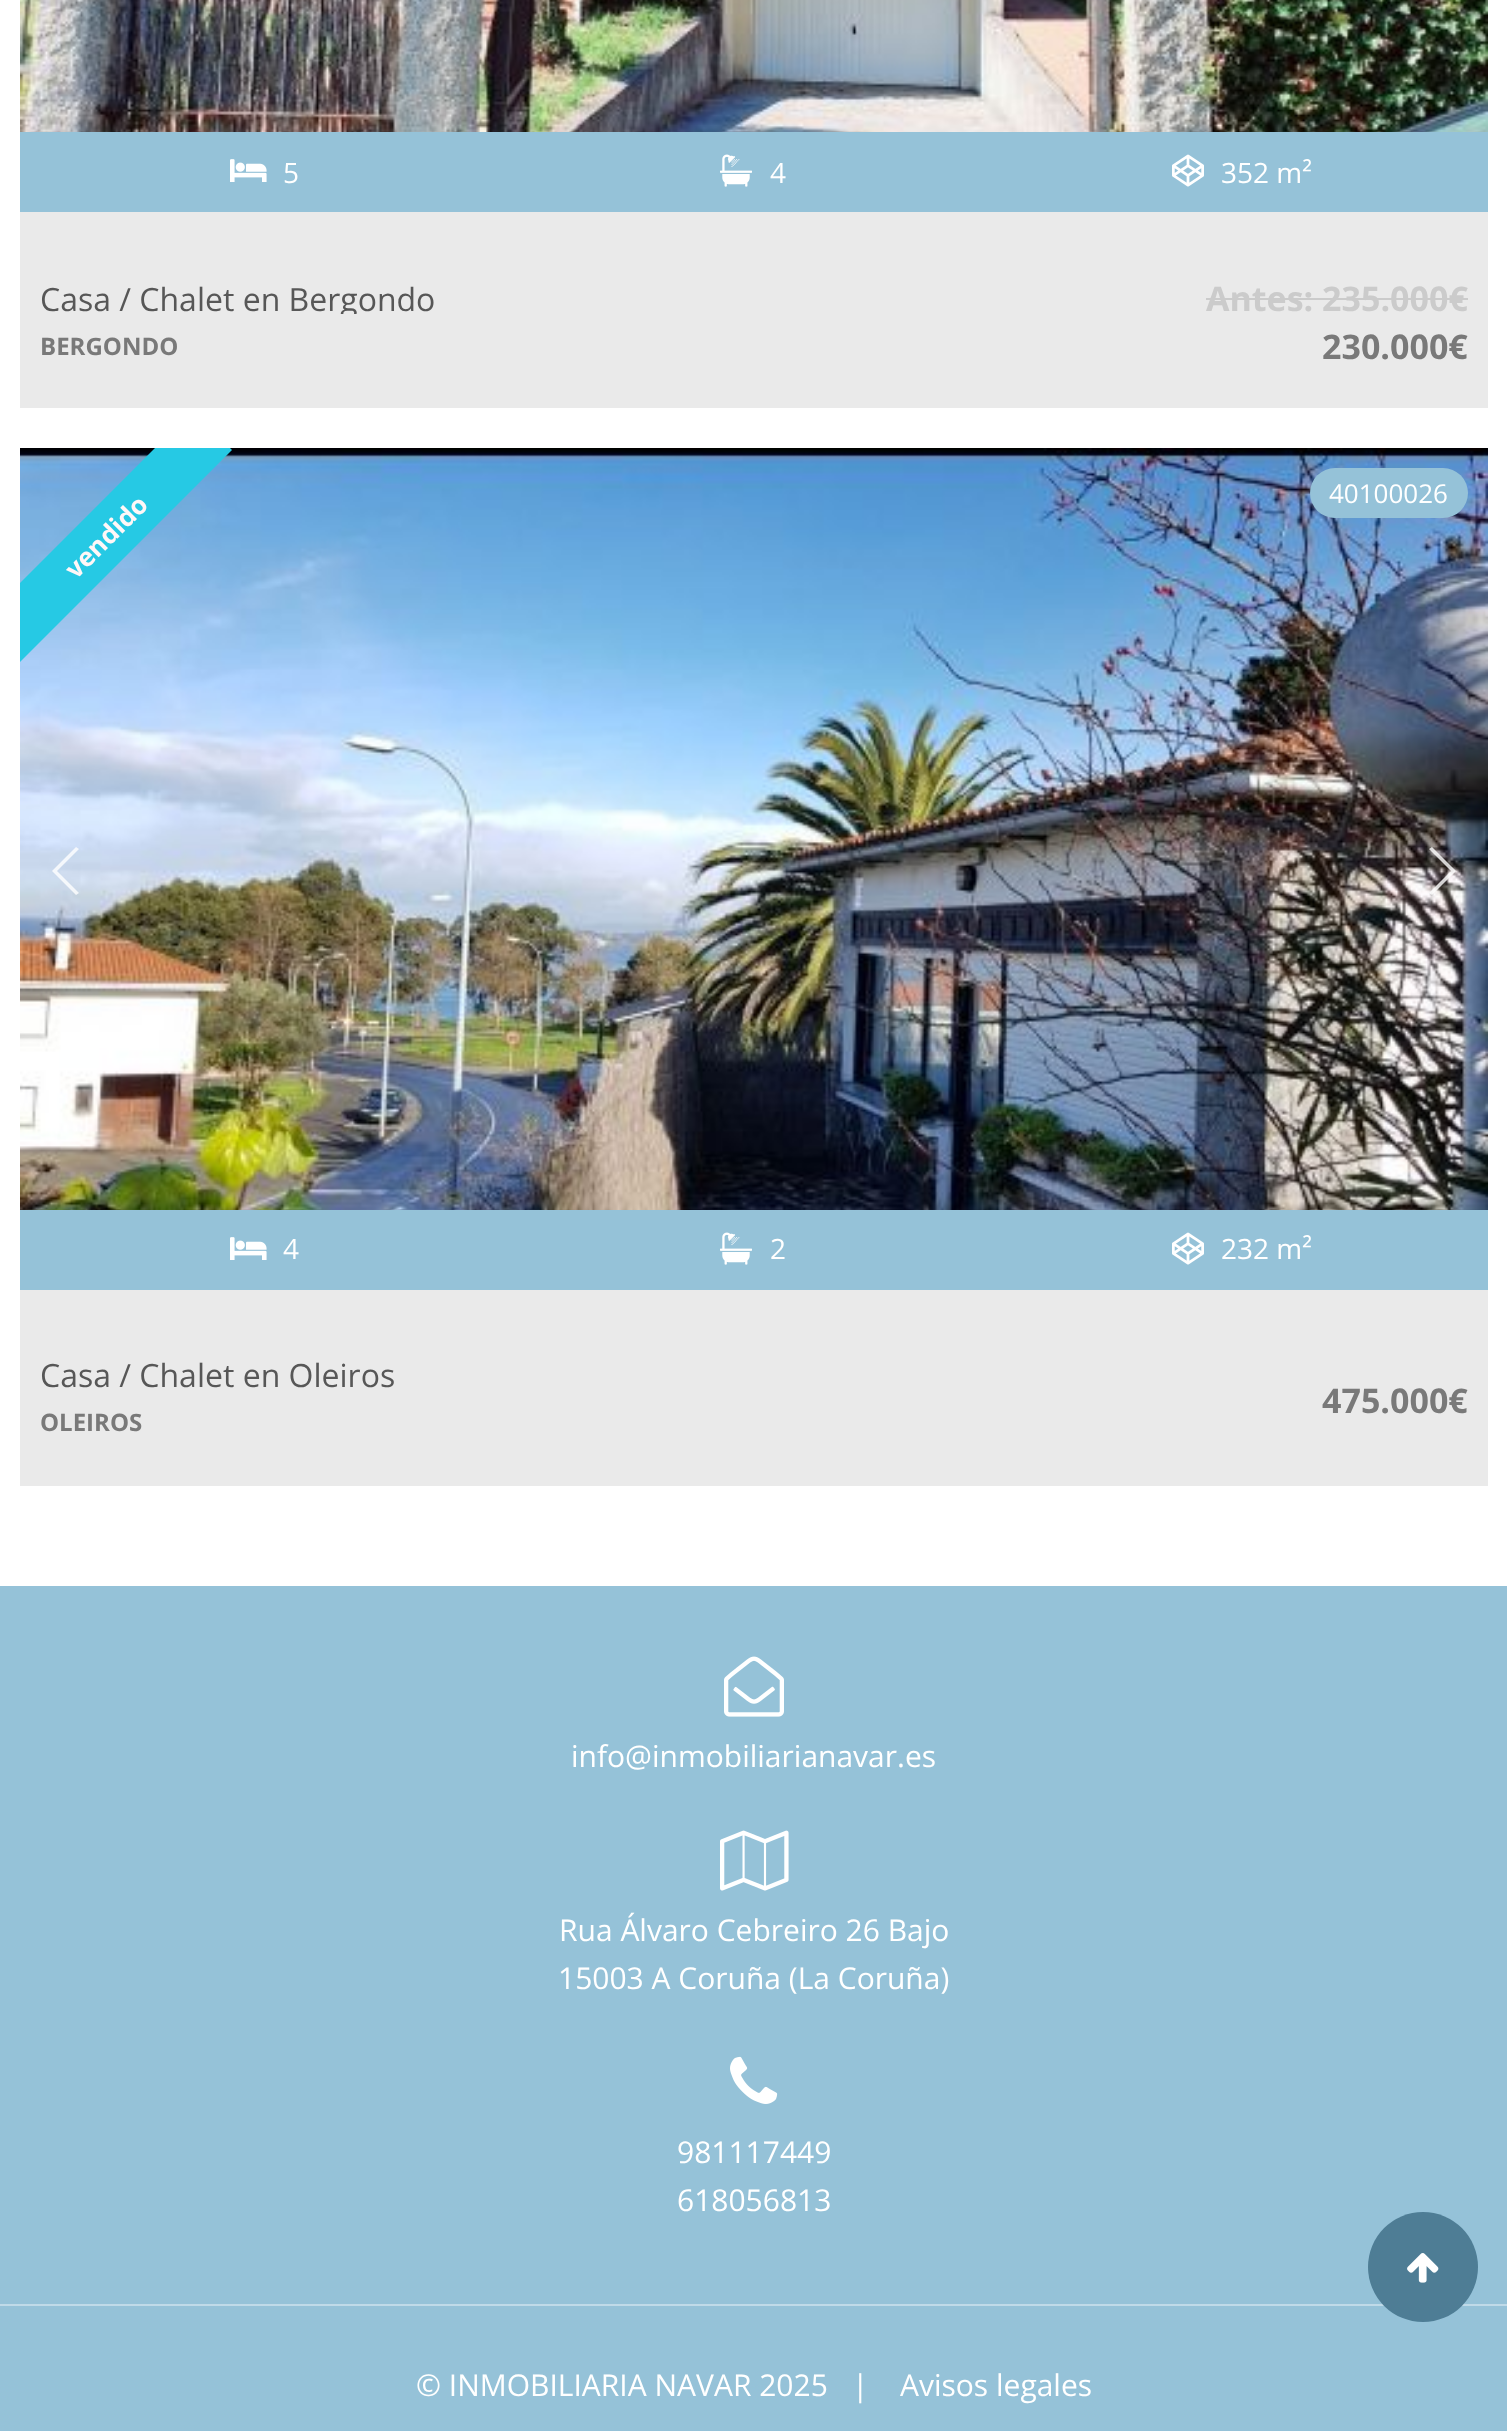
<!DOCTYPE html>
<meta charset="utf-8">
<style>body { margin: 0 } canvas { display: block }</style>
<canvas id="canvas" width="1507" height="2431"></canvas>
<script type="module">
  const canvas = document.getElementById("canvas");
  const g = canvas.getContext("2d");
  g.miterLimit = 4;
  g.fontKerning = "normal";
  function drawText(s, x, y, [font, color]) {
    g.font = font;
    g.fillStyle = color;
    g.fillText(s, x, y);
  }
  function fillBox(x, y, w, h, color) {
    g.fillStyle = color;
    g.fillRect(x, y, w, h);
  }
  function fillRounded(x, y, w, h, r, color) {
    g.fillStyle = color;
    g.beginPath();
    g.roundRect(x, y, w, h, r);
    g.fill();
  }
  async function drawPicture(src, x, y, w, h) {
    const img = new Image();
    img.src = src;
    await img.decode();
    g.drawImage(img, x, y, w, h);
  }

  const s1 = ["28px Open Sans", "#FFFFFF"];
  const s2 = ["32px Open Sans", "#575757"];
  const s3 = ["bold 34px Open Sans", "#CBCBCB"];
  const s4 = ["bold 34px Open Sans", "#797979"];
  const s5 = ["bold 24px Open Sans", "#797979"];
  const s6 = ["26px Open Sans", "#FFFFFF"];
  const s7 = ["30px Open Sans", "#FFFFFF"];

  fillBox(0, 0, 1507, 2431, "#FFFFFF");
  fillBox(20, 212, 1468, 196, "#EAEAEA");
  await drawPicture("pic1.png", 20, 0, 1468, 132);
  fillBox(20, 132, 1468, 80, "#95C2D8");
  await drawPicture("pic2.png", 230, 159, 37, 23);
  drawText("5", 283, 183, s1);
  await drawPicture("pic3.png", 720, 154, 32, 33);
  drawText("4", 770, 183, s1);
  await drawPicture("pic4.png", 1172, 154, 32, 33);
  drawText("352 m²", 1221, 183, s1);
  g.save();
  g.beginPath();
  g.rect(40, 282, 734, 32);
  g.clip();
  drawText("Casa / Chalet en Bergondo", 40, 311, s2);
  g.restore();
  drawText("Antes: 235.000€", 1206, 311, s3);
  fillBox(1206, 298, 262, 2, "#CBCBCB");
  drawText("230.000€", 1322, 359, s4);
  drawText("BERGONDO", 40, 355, s5);
  fillBox(20, 1290, 1468, 196, "#EAEAEA");
  await drawPicture("pic5.png", 20, 448, 1468, 762);
  g.fillStyle = "rgba(255, 255, 255, 0.8)";
  g.beginPath();
  g.moveTo(52, 871);
  g.lineTo(76, 847);
  g.lineTo(79, 849);
  g.lineTo(57, 871);
  g.lineTo(79, 893);
  g.lineTo(76, 895);
  g.closePath();
  g.fill();
  g.beginPath();
  g.moveTo(1456, 871);
  g.lineTo(1432, 895);
  g.lineTo(1429, 893);
  g.lineTo(1451, 871);
  g.lineTo(1429, 849);
  g.lineTo(1432, 847);
  g.closePath();
  g.fill();
  fillRounded(1310, 468, 158, 50, 25, "#95C2D8");
  drawText("40100026", 1329, 503, s6);
  g.save();
  g.beginPath();
  g.rect(20, 448, 1468, 1038);
  g.clip();
  g.fillStyle = "#26C9E4";
  g.beginPath();
  g.moveTo(-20, 623);
  g.lineTo(192, 411);
  g.lineTo(232, 450);
  g.lineTo(20, 662);
  g.closePath();
  g.fill();
  g.restore();
  g.font = "bold 26px Open Sans";
  g.fillStyle = "#FFF7F7";
  g.save();
  g.translate(76, 580);
  g.rotate(-45 * Math.PI / 180);
  g.fillText("vendido", 0, 0);
  g.restore();
  fillBox(20, 1210, 1468, 80, "#95C2D8");
  await drawPicture("pic2.png", 230, 1237, 37, 23);
  drawText("4", 283, 1259, s1);
  await drawPicture("pic3.png", 720, 1232, 32, 33);
  drawText("2", 770, 1259, s1);
  await drawPicture("pic4.png", 1172, 1232, 32, 33);
  drawText("232 m²", 1221, 1259, s1);
  drawText("Casa / Chalet en Oleiros", 40, 1387, s2);
  drawText("475.000€", 1322, 1413, s4);
  drawText("OLEIROS", 40, 1431, s5);
  fillBox(0, 1586, 1507, 845, "#95C2D8");
  await drawPicture("pic6.png", 724, 1656, 60, 61);
  drawText("info@inmobiliarianavar.es", 571, 1767, s7);
  await drawPicture("pic7.png", 720, 1830, 69, 61);
  drawText("Rua Álvaro Cebreiro 26 Bajo", 559, 1941, s7);
  drawText("15003 A Coruña (La Coruña)", 558, 1989, s7);
  await drawPicture("pic8.png", 730, 2056, 48, 48);
  drawText("981117449", 677, 2163, s7);
  drawText("618056813", 677, 2211, s7);
  fillBox(0, 2304, 1507, 2, "#BFDAE8");
  g.fillStyle = "#4E7D95";
  g.beginPath();
  g.arc(1423, 2267, 55, 0, Math.PI * 2);
  g.fill();
  await drawPicture("pic9.png", 1407, 2253, 32, 30);
  drawText("© INMOBILIARIA NAVAR 2025", 416, 2396, s7);
  drawText("|", 852, 2396, s7);
  drawText("Avisos legales", 900, 2396, s7);
</script>
